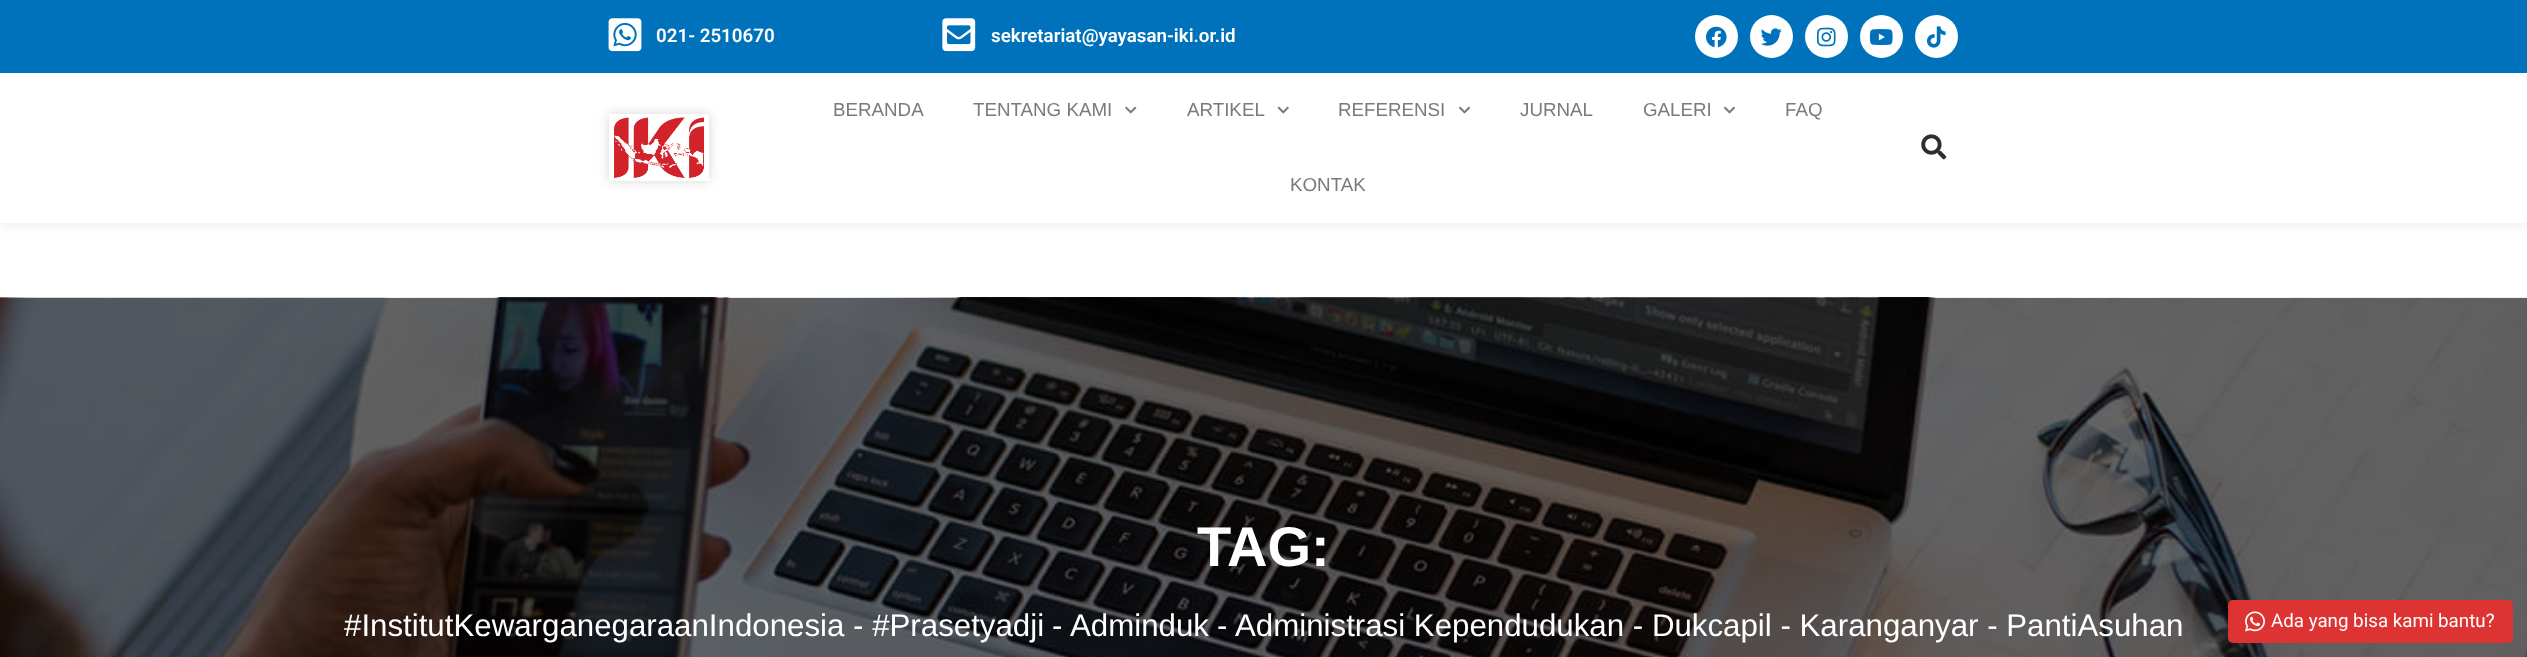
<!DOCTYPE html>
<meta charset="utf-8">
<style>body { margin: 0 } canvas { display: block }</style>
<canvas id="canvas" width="2527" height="657"></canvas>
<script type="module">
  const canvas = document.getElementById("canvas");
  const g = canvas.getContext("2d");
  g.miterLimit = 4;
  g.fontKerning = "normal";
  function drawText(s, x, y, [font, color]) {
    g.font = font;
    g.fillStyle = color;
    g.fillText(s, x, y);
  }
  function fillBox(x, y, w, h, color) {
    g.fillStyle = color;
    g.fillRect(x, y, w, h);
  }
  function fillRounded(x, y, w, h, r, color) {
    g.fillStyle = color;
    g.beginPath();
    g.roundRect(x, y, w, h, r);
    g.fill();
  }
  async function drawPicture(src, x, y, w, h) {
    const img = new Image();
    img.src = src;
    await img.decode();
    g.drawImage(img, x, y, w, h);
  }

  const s1 = ["600 18.75px Roboto", "#FFFFFF"];
  const s2 = ["18.75px Liberation Sans", "#7A7A7A"];
  const s3 = ["bold 56px Liberation Sans", "#FFFFFF"];
  const s4 = ["31.25px Liberation Sans", "#FFFFFF"];
  const s5 = ["18.75px Roboto", "#FFFFFF"];

  fillBox(0, 0, 2527, 657, "#FFFFFF");
  fillBox(0, 0, 2527, 73, "#0072BC");
  await drawPicture("pic1.png", 608, 18, 34, 34);
  drawText("021- 2510670", 656, 42, s1);
  await drawPicture("pic2.png", 942, 18, 34, 34);
  drawText("sekretariat@yayasan-iki.or.id", 991, 42, s1);
  g.beginPath();
  g.arc(1716.5, 36.5, 21.5, 0, Math.PI * 2);
  g.fill();
  await drawPicture("pic3.png", 1706, 26, 21, 22);
  g.beginPath();
  g.arc(1771.5, 36.5, 21.5, 0, Math.PI * 2);
  g.fill();
  await drawPicture("pic4.png", 1760, 28, 22, 18);
  g.beginPath();
  g.arc(1826.5, 36.5, 21.5, 0, Math.PI * 2);
  g.fill();
  await drawPicture("pic5.png", 1816, 27, 20, 20);
  g.beginPath();
  g.arc(1881.5, 36.5, 21.5, 0, Math.PI * 2);
  g.fill();
  await drawPicture("pic6.png", 1869, 29, 24, 16);
  g.beginPath();
  g.arc(1936.5, 36.5, 21.5, 0, Math.PI * 2);
  g.fill();
  await drawPicture("pic7.png", 1927, 26, 19, 22);
  g.fillStyle = "rgba(43, 61, 79, 0.05)";
  g.filter = "blur(3px)";
  g.beginPath();
  g.rect(0, 79, 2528, 150);
  g.fill();
  g.filter = "none";
  fillBox(0, 77, 2527, 146, "#FFFFFF");
  g.save();
  g.beginPath();
  g.moveTo(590, 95);
  g.lineTo(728, 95);
  g.lineTo(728, 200);
  g.lineTo(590, 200);
  g.closePath();
  g.moveTo(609, 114);
  g.lineTo(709, 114);
  g.lineTo(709, 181);
  g.lineTo(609, 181);
  g.closePath();
  g.clip("evenodd");
  g.fillStyle = "rgba(0, 0, 0, 0.16)";
  g.filter = "blur(6px)";
  g.beginPath();
  g.rect(609, 114, 100, 67);
  g.fill();
  g.filter = "none";
  g.restore();
  await drawPicture("pic8.png", 614, 117, 91, 61);
  drawText("BERANDA", 833, 116, s2);
  drawText("TENTANG KAMI", 973, 116, s2);
  await drawPicture("pic9.png", 1125, 106, 12, 8);
  drawText("ARTIKEL", 1187, 116, s2);
  await drawPicture("pic10.png", 1277, 106, 12, 8);
  drawText("REFERENSI", 1338, 116, s2);
  await drawPicture("pic11.png", 1459, 106, 11, 8);
  drawText("JURNAL", 1520, 116, s2);
  drawText("GALERI", 1643, 116, s2);
  await drawPicture("pic11.png", 1724, 106, 11, 8);
  drawText("FAQ", 1785, 116, s2);
  drawText("KONTAK", 1290, 191, s2);
  await drawPicture("pic12.png", 1921, 134, 26, 26);
  await drawPicture("pic13.png", 0, 297, 2527, 360);
  drawText("TAG:", 1197, 566, s3);
  drawText("#InstitutKewarganegaraanIndonesia - #Prasetyadji", 344, 636, s4);
  drawText("-", 1052, 636, s4);
  drawText("Adminduk", 1070, 636, s4);
  drawText("-", 1217, 636, s4);
  drawText("Administrasi Kependudukan - Dukcapil - Karanganyar - PantiAsuhan", 1235, 636, s4);
  fillRounded(2228, 600, 285, 43, 5, "#DD3333");
  await drawPicture("pic14.png", 2245, 611, 20, 21);
  drawText("Ada yang bisa kami bantu?", 2271, 627, s5);
</script>
